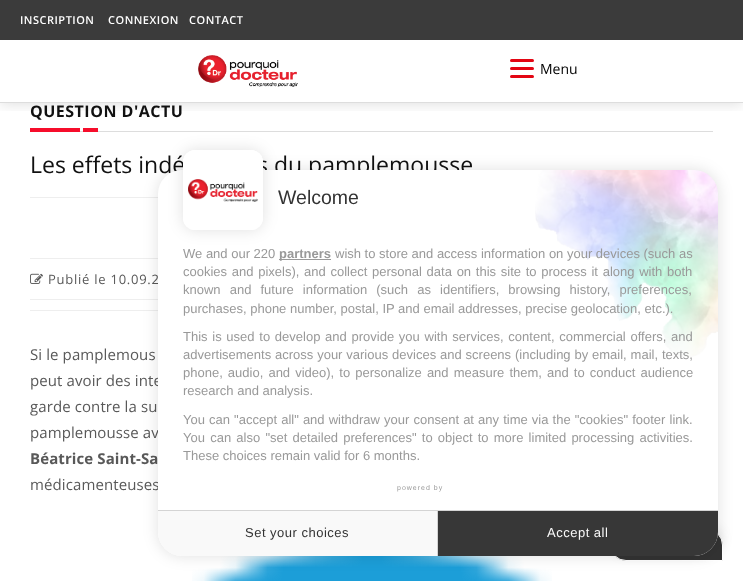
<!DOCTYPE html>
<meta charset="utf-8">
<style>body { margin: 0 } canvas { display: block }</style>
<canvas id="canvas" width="743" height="581"></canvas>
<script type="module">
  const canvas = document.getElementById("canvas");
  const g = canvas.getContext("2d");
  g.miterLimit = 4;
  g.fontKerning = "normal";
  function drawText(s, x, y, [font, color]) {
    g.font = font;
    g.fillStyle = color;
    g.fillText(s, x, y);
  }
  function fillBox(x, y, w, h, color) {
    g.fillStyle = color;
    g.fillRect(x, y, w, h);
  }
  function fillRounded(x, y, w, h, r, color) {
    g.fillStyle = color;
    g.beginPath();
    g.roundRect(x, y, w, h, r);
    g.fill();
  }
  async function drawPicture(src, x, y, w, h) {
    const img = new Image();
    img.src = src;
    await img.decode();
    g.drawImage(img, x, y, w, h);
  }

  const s1 = ["600 11px Open Sans", "#FFFFFF"];
  const s2 = ["14px Open Sans", "#000000"];
  const s3 = ["bold 16px Open Sans", "#111111"];
  const s4 = ["23px Open Sans", "#111111"];
  const s5 = ["13px Open Sans", "#595959"];
  const s6 = ["15px Open Sans", "#595959"];
  const s7 = ["bold 15px Open Sans", "#595959"];
  const s8 = ["19.5px Liberation Sans", "#333333"];
  const s9 = ["13px Liberation Sans", "#999999"];
  const s10 = ["bold 13px Liberation Sans", "#999999"];
  const s11 = ["7px Liberation Sans", "#999999"];
  const s12 = ["13px Liberation Sans", "#333333"];
  const s13 = ["13px Liberation Sans", "#F9F9F9"];

  fillBox(0, 0, 743, 581, "#FFFFFF");
  g.save();
  g.beginPath();
  g.rect(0, 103, 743, 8);
  g.clip();
  g.fillStyle = "rgba(0, 0, 0, 0.15)";
  g.filter = "blur(7.5px)";
  g.beginPath();
  g.rect(0, 0, 743, 103);
  g.fill();
  g.filter = "none";
  g.restore();
  fillBox(0, 0, 743, 40, "#3B3B3B");
  g.letterSpacing = "0.5px";
  drawText("INSCRIPTION", 20, 24, s1);
  drawText("CONNEXION", 108, 24, s1);
  drawText("CONTACT", 189, 24, s1);
  fillBox(0, 102, 743, 1, "#DDDDDD");
  await drawPicture("pic1.png", 198, 55, 100, 32);
  fillRounded(510, 59, 24, 3, 1.5, "#E30613");
  fillRounded(510, 67, 24, 3, 1.5, "#E30613");
  fillRounded(510, 75, 24, 3, 1.5, "#E30613");
  g.letterSpacing = "0px";
  drawText("Menu", 540, 74, s2);
  g.letterSpacing = "0.5px";
  drawText("QUESTION D'ACTU", 30, 117, s3);
  fillBox(80, 131, 633, 1, "#DDDDDD");
  fillBox(30, 128, 50, 4, "#F60D2B");
  fillBox(83, 128, 15, 4, "#F60D2B");
  g.letterSpacing = "0px";
  drawText("Les effets indé", 30, 173, s4);
  drawText("s du pamplemousse", 257, 173, s4);
  fillBox(30, 197, 128, 1, "#EEEEEE");
  fillBox(30, 258, 128, 1, "#EEEEEE");
  await drawPicture("pic2.png", 30, 273, 13, 11);
  g.letterSpacing = "0.75px";
  drawText("Publié le 10.09.2", 48, 284, s5);
  fillBox(30, 299, 128, 1, "#EEEEEE");
  fillBox(30, 310, 128, 1, "#EEEEEE");
  g.letterSpacing = "0.1px";
  drawText("Si le pamplemous", 30, 360, s6);
  drawText("peut avoir des inte", 30, 386, s6);
  drawText("garde contre la su", 30, 412, s6);
  drawText("pamplemousse av", 30, 438, s6);
  drawText("Béatrice Saint-Sa", 30, 464, s7);
  drawText("médicamenteuses", 30, 490, s6);
  await drawPicture("pic3.png", 192, 556, 360, 25);
  g.fillStyle = "rgba(0, 0, 0, 0.12)";
  g.filter = "blur(6px)";
  g.beginPath();
  g.roundRect(612, 526, 109, 28, 14);
  g.fill();
  g.filter = "none";
  g.fillStyle = "#333333";
  g.beginPath();
  g.roundRect(610.5, 529.5, 112, 31, [15.5, 15.5, 0, 15.5]);
  g.fill();
  g.strokeStyle = "#FFFFFF";
  g.stroke();
  g.fillStyle = "rgba(0, 0, 0, 0.12)";
  g.filter = "blur(7.5px)";
  g.beginPath();
  g.roundRect(158, 170, 560, 386, 24);
  g.fill();
  g.filter = "none";
  fillRounded(158, 170, 560, 386, 24, "#FFFFFF");
  g.fillStyle = "rgba(0, 0, 0, 0.12)";
  g.filter = "blur(7.5px)";
  g.beginPath();
  g.roundRect(183, 150, 80, 80, 12);
  g.fill();
  g.filter = "none";
  fillRounded(183, 150, 80, 80, 12, "#FFFFFF");
  await drawPicture("pic4.png", 188, 179, 70, 23);
  g.beginPath();
  g.roundRect(185.5, 152.5, 75, 75, 9.5);
  g.lineWidth = 5;
  g.stroke();
  await drawPicture("pic5.png", 535, 170, 183, 187);
  g.letterSpacing = "0px";
  drawText("Welcome", 278, 204, s8);
  drawText("We and our 220", 183, 258, s9);
  fillBox(279, 259, 52, 1, "#999999");
  drawText("partners", 279, 258, s10);
  drawText("wish to store and access information on your devices (such as", 335, 258, s9);
  g.wordSpacing = "1.1px";
  drawText("cookies and pixels), and collect personal data on this site to process it along with both", 183, 276, s9);
  g.wordSpacing = "5.5px";
  drawText("known and future information (such as identifiers, browsing history, preferences,", 183, 294, s9);
  g.wordSpacing = "0px";
  drawText("purchases, phone number, postal, IP and email addresses, precise geolocation, etc.).", 183, 313, s9);
  g.wordSpacing = "1.1px";
  drawText("This is used to develop and provide you with services, content, commercial offers, and", 183, 341, s9);
  g.wordSpacing = "0.25px";
  drawText("advertisements across your various devices and screens (including by email, mail, texts,", 183, 359, s9);
  g.wordSpacing = "1.5px";
  drawText("phone, audio, and video), to personalize and measure them, and to conduct audience", 183, 377, s9);
  g.wordSpacing = "0px";
  drawText("research and analysis.", 183, 395, s9);
  g.wordSpacing = "0.5px";
  drawText("You can \"accept all\" and withdraw your consent at any time via the \"cookies\" footer link", 183, 424, s9);
  g.wordSpacing = "0px";
  drawText(".", 689, 424, s9);
  g.wordSpacing = "1.6px";
  drawText("You can also \"set detailed preferences\" to object to more limited processing activities.", 183, 442, s9);
  g.wordSpacing = "0px";
  drawText("These choices remain valid for 6 months.", 183, 460, s9);
  g.letterSpacing = "1px";
  drawText("powered by", 397, 490, s11);
  g.fillStyle = "#F9F9F9";
  g.beginPath();
  g.roundRect(158, 510, 280, 46, [0, 0, 0, 24]);
  g.fill();
  fillBox(158, 510, 280, 1, "#D4D4D4");
  fillBox(437, 510, 1, 46, "#D4D4D4");
  g.letterSpacing = "0.5px";
  drawText("Set your choices", 245, 537, s12);
  g.fillStyle = "#373737";
  g.beginPath();
  g.roundRect(438, 510, 280, 46, [0, 0, 24, 0]);
  g.fill();
  fillBox(438, 510, 280, 1, "#D4D4D4");
  drawText("Accept all", 547, 537, s13);
</script>
